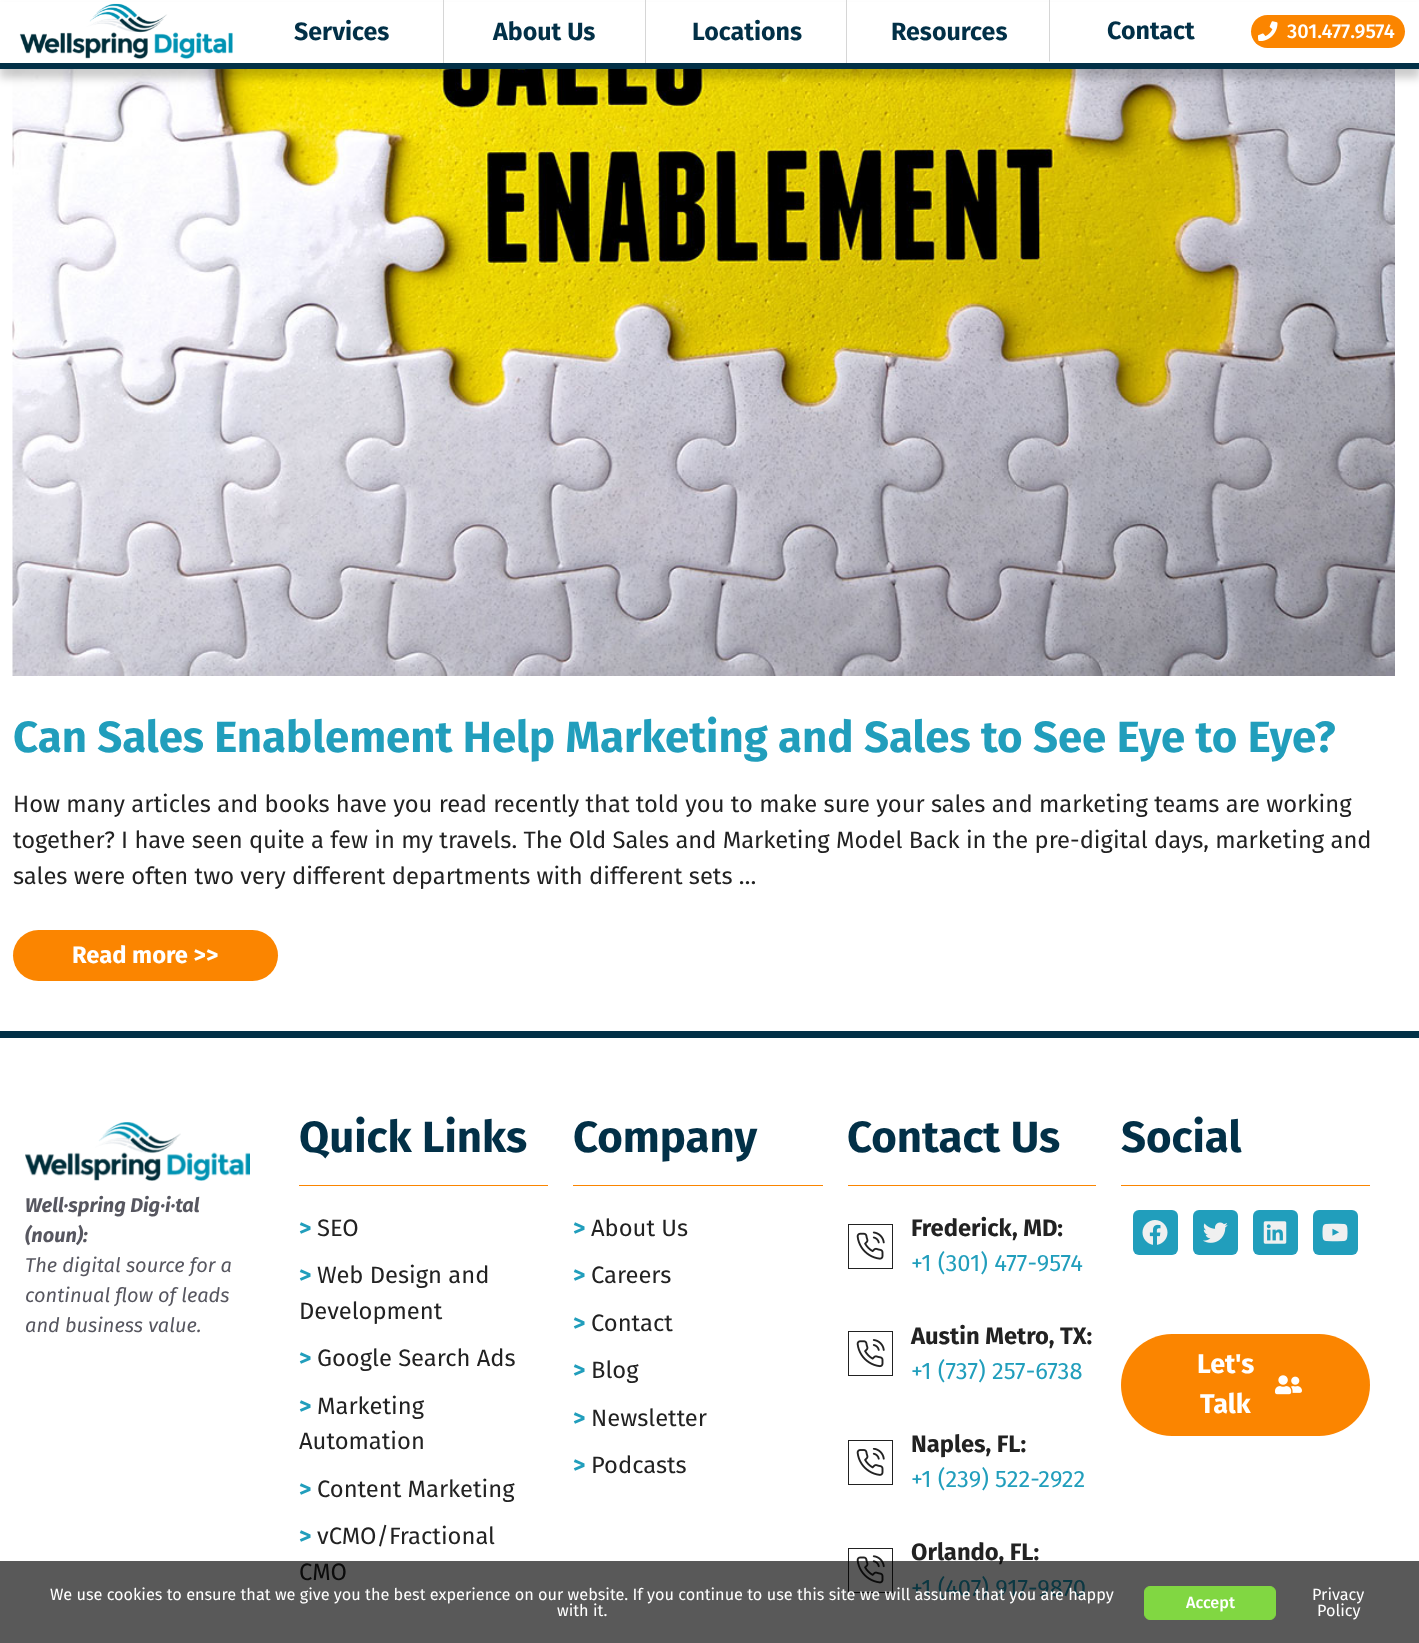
<!DOCTYPE html>
<meta charset="utf-8">
<style>body { margin: 0 } canvas { display: block }</style>
<canvas id="canvas" width="1419" height="1643"></canvas>
<script type="module">
  const canvas = document.getElementById("canvas");
  const g = canvas.getContext("2d");
  g.miterLimit = 4;
  g.fontKerning = "normal";
  function drawText(s, x, y, [font, color]) {
    g.font = font;
    g.fillStyle = color;
    g.fillText(s, x, y);
  }
  function fillBox(x, y, w, h, color) {
    g.fillStyle = color;
    g.fillRect(x, y, w, h);
  }
  function fillRounded(x, y, w, h, r, color) {
    g.fillStyle = color;
    g.beginPath();
    g.roundRect(x, y, w, h, r);
    g.fill();
  }
  async function drawPicture(src, x, y, w, h) {
    const img = new Image();
    img.src = src;
    await img.decode();
    g.drawImage(img, x, y, w, h);
  }

  const s1 = ["bold 25px Fira Sans", "#023047"];
  const s2 = ["500 20px Fira Sans", "#FFFFFF"];
  const s3 = ["bold 43.75px Fira Sans", "#219EBC"];
  const s4 = ["23.75px Fira Sans", "#222222"];
  const s5 = ["bold 23.75px Fira Sans", "#FFFFFF"];
  const s6 = ["italic bold 20px Fira Sans", "#575760"];
  const s7 = ["italic 20px Fira Sans", "#575760"];
  const s8 = ["bold 43.75px Fira Sans", "#023047"];
  const s9 = ["bold 23.75px Fira Sans", "#219EBC"];
  const s10 = ["bold 23.75px Fira Sans", "#222222"];
  const s11 = ["23.75px Fira Sans", "#219EBC"];
  const s12 = ["bold 27px Fira Sans", "#FFFFFF"];
  const s13 = ["16.25px Fira Sans", "#FFFFFF"];
  const s14 = ["500 16.25px Fira Sans", "#FFFFFF"];

  fillBox(0, 0, 1419, 1643, "#FFFFFF");
  await drawPicture("pic3.png", 12, 69, 1383, 607);
  g.fillStyle = "rgba(0, 0, 0, 0.2)";
  g.filter = "blur(4.5px)";
  g.beginPath();
  g.rect(0, 9, 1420, 69);
  g.fill();
  g.filter = "none";
  fillBox(0, 2, 1419, 61, "#FFFFFF");
  fillBox(0, 63, 1419, 6, "#023047");
  await drawPicture("pic1.png", 19, 3, 214, 56);
  drawText("Services", 294, 40, s1);
  fillBox(443, 0, 1, 63, "#D6D6D6");
  drawText("About Us", 493, 40, s1);
  fillBox(645, 0, 1, 63, "#D6D6D6");
  drawText("Locations", 692, 40, s1);
  fillBox(846, 0, 1, 63, "#D6D6D6");
  drawText("Resources", 891, 40, s1);
  g.fillStyle = "#D6D6D6";
  g.beginPath();
  g.moveTo(1049, 62);
  g.lineTo(1049, 0);
  g.lineTo(1050, 0);
  g.lineTo(1050, 61);
  g.closePath();
  g.fill();
  drawText("Contact", 1107, 39, s1);
  fillRounded(1251, 15, 154, 33, 16.5, "#FB8500");
  await drawPicture("pic2.png", 1258, 21, 20, 20);
  drawText("301.477.9574", 1287, 38, s2);
  drawText("Can Sales Enablement Help Marketing and Sales to See Eye to Eye?", 13, 752, s3);
  drawText("How many articles and books have you read recently that told you to make sure your sales and marketing teams are working", 13, 812, s4);
  drawText("together? I have seen quite a few in my travels. The Old Sales and Marketing Model Back in the pre-digital days, marketing and", 13, 848, s4);
  drawText("sales were often two very different departments with different sets …", 13, 884, s4);
  fillRounded(13, 930, 265, 51, 25.5, "#FB8500");
  drawText("Read more >>", 72, 963, s5);
  fillBox(0, 1031, 1419, 7, "#023047");
  await drawPicture("pic4.png", 25, 1122, 225, 59);
  drawText("Well·spring Dig·i·tal", 25, 1212, s6);
  drawText("(noun):", 25, 1242, s6);
  drawText("The digital source for a", 25, 1272, s7);
  drawText("continual flow of leads", 25, 1302, s7);
  drawText("and business value.", 25, 1332, s7);
  fillBox(299, 1185, 249, 1, "#FB8500");
  drawText("Quick Links", 299, 1152, s8);
  drawText(">", 299, 1236, s9);
  drawText("SEO", 317, 1236, s4);
  drawText(">", 299, 1283, s9);
  drawText("Web Design and", 317, 1283, s4);
  drawText("Development", 299, 1319, s4);
  drawText(">", 299, 1366, s9);
  drawText("Google Search Ads", 317, 1366, s4);
  drawText(">", 299, 1414, s9);
  drawText("Marketing", 317, 1414, s4);
  drawText("Automation", 299, 1449, s4);
  drawText(">", 299, 1497, s9);
  drawText("Content Marketing", 317, 1497, s4);
  drawText(">", 299, 1544, s9);
  drawText("vCMO/Fractional", 317, 1544, s4);
  drawText("CMO", 299, 1580, s4);
  fillBox(573, 1185, 250, 1, "#FB8500");
  drawText("Company", 573, 1152, s8);
  drawText(">", 573, 1236, s9);
  drawText("About Us", 591, 1236, s4);
  drawText(">", 573, 1283, s9);
  drawText("Careers", 591, 1283, s4);
  drawText(">", 573, 1331, s9);
  drawText("Contact", 591, 1331, s4);
  drawText(">", 573, 1378, s9);
  drawText("Blog", 591, 1378, s4);
  drawText(">", 573, 1426, s9);
  drawText("Newsletter", 591, 1426, s4);
  drawText(">", 573, 1473, s9);
  drawText("Podcasts", 591, 1473, s4);
  fillBox(848, 1185, 248, 1, "#FB8500");
  drawText("Contact Us", 847, 1152, s8);
  g.strokeStyle = "#222222";
  g.strokeRect(848.5, 1224.5, 44, 44);
  await drawPicture("pic5.png", 856, 1231, 29, 29);
  drawText("Frederick, MD:", 911, 1236, s10);
  drawText("+1 (301) 477-9574", 911, 1271, s11);
  g.strokeRect(848.5, 1331.5, 44, 44);
  await drawPicture("pic6.png", 856, 1339, 29, 29);
  drawText("Austin Metro, TX:", 911, 1344, s10);
  drawText("+1 (737) 257-6738", 911, 1379, s11);
  g.strokeRect(848.5, 1440.5, 44, 44);
  await drawPicture("pic7.png", 856, 1448, 29, 28);
  drawText("Naples, FL:", 911, 1452, s10);
  drawText("+1 (239) 522-2922", 911, 1487, s11);
  g.strokeRect(848.5, 1548.5, 44, 44);
  await drawPicture("pic8.png", 856, 1555, 29, 29);
  drawText("Orlando, FL:", 911, 1560, s10);
  drawText("+1 (407) 917-9870", 911, 1596, s11);
  fillBox(1121, 1185, 249, 1, "#FB8500");
  drawText("Social", 1121, 1152, s8);
  fillRounded(1133, 1210, 45, 45, 6, "#219EBC");
  await drawPicture("pic9.png", 1142, 1220, 26, 25);
  fillRounded(1193, 1210, 45, 45, 6, "#219EBC");
  await drawPicture("pic10.png", 1203, 1222, 25, 21);
  fillRounded(1253, 1210, 45, 45, 6, "#219EBC");
  await drawPicture("pic11.png", 1263, 1221, 24, 23);
  fillRounded(1313, 1210, 45, 45, 6, "#219EBC");
  await drawPicture("pic12.png", 1322, 1223, 26, 19);
  fillRounded(1121, 1334, 249, 102, 51, "#FB8500");
  drawText("Let's", 1197, 1373, s12);
  drawText("Talk", 1200, 1413, s12);
  await drawPicture("pic13.png", 1275, 1375, 27, 20);
  fillBox(0, 1561, 1419, 82, "rgba(0, 0, 0, 0.65)");
  drawText("We use cookies to ensure that we give you the best experience on our website. If you continue to use this site we will assume that you are happy", 50, 1600, s13);
  drawText("with it.", 557, 1616, s13);
  g.fillStyle = "#81D742";
  g.beginPath();
  g.roundRect(1144.5, 1586.5, 131, 33, 5.5);
  g.fill();
  g.strokeStyle = "#81D742";
  g.stroke();
  drawText("Accept", 1186, 1608, s14);
  drawText("Privacy", 1312, 1600, s13);
  drawText("Policy", 1317, 1616, s13);
</script>
